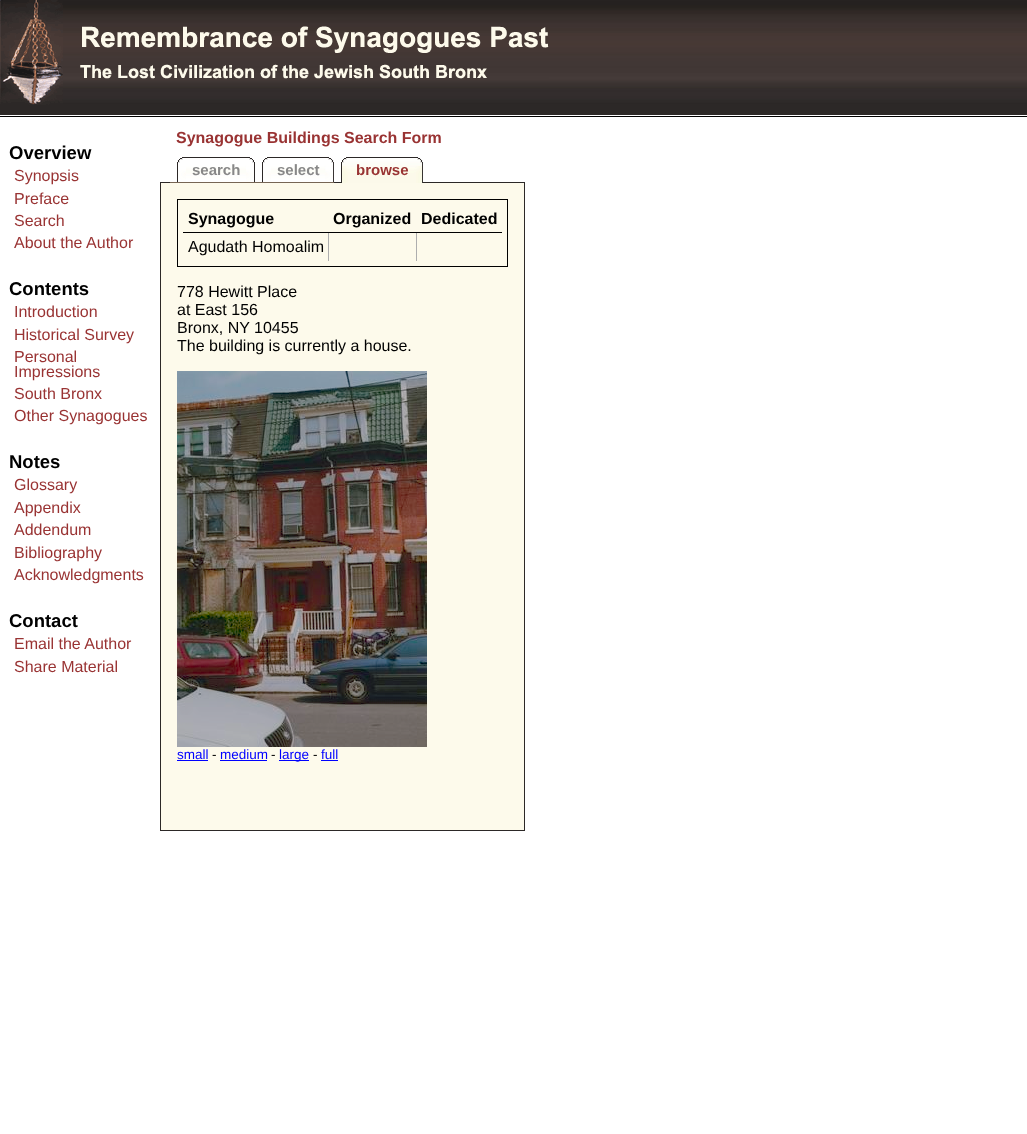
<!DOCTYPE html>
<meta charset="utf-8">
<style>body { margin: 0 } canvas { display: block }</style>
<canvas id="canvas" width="1027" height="1134"></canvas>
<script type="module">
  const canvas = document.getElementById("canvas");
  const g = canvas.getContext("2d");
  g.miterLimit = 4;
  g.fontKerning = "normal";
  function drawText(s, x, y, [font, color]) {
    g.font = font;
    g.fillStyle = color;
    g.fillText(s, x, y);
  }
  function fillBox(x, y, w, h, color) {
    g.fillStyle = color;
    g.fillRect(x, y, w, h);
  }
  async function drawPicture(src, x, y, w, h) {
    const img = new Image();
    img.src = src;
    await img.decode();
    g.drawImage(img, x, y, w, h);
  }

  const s1 = ["bold 18.5px Liberation Sans", "#000000"];
  const s2 = ["16px Liberation Sans", "#993333"];
  const s3 = ["bold 16px Liberation Sans", "#993333"];
  const s4 = ["bold 15px Liberation Sans", "#888888"];
  const s5 = ["bold 15px Liberation Sans", "#993333"];
  const s6 = ["bold 16px Liberation Sans", "#000000"];
  const s7 = ["16px Liberation Sans", "#000000"];
  const s8 = ["13.5px Liberation Sans", "#0000FF"];
  const s9 = ["13.5px Liberation Sans", "#000000"];

  fillBox(0, 0, 1027, 1134, "#FFFFFF");
  await drawPicture("pic1.png", 0, 0, 1027, 117);
  await drawPicture("pic2.png", 0, 0, 63, 105);
  await drawPicture("pic3.png", 80, 26, 469, 53);
  drawText("Overview", 9, 159, s1);
  drawText("Synopsis", 14, 181, s2);
  drawText("Preface", 14, 204, s2);
  drawText("Search", 14, 226, s2);
  drawText("About the Author", 14, 248, s2);
  drawText("Contents", 9, 295, s1);
  drawText("Introduction", 14, 317, s2);
  drawText("Historical Survey", 14, 340, s2);
  drawText("Personal", 14, 362, s2);
  drawText("Impressions", 14, 377, s2);
  drawText("South Bronx", 14, 399, s2);
  drawText("Other Synagogues", 14, 421, s2);
  drawText("Notes", 9, 468, s1);
  drawText("Glossary", 14, 490, s2);
  drawText("Appendix", 14, 513, s2);
  drawText("Addendum", 14, 535, s2);
  drawText("Bibliography", 14, 558, s2);
  drawText("Acknowledgments", 14, 580, s2);
  drawText("Contact", 9, 627, s1);
  drawText("Email the Author", 14, 649, s2);
  drawText("Share Material", 14, 672, s2);
  drawText("Synagogue Buildings Search Form", 176, 143, s3);
  fillBox(160, 182, 365, 1, "#2C2827");
  await drawPicture("pic4.png", 177, 157, 9, 25);
  fillBox(170, 182, 164, 1, "#776655");
  await drawPicture("pic5.png", 186, 157, 69, 25);
  drawText("search", 192, 175, s4);
  await drawPicture("pic4.png", 262, 157, 9, 25);
  await drawPicture("pic6.png", 271, 157, 63, 25);
  drawText("select", 277, 175, s4);
  await drawPicture("pic7.png", 341, 157, 9, 26);
  await drawPicture("pic8.png", 350, 157, 73, 26);
  drawText("browse", 356, 175, s5);
  fillBox(161, 183, 363, 647, "#FDFAEB");
  fillBox(524, 183, 1, 648, "#2C2827");
  fillBox(160, 830, 365, 1, "#2C2827");
  fillBox(160, 183, 1, 648, "#2C2827");
  g.strokeStyle = "#000000";
  g.strokeRect(177.5, 199.5, 330, 67);
  fillBox(183, 232, 319, 1, "#000000");
  drawText("Synagogue", 188, 224, s6);
  drawText("Organized", 333, 224, s6);
  drawText("Dedicated", 421, 224, s6);
  drawText("Agudath Homoalim", 188, 252, s7);
  fillBox(328, 233, 1, 28, "#AEAEAE");
  fillBox(416, 233, 1, 28, "#AEAEAE");
  drawText("778 Hewitt Place", 177, 297, s7);
  drawText("at East 156", 177, 315, s7);
  drawText("Bronx, NY 10455", 177, 333, s7);
  drawText("The building is currently a house.", 177, 351, s7);
  await drawPicture("pic9.png", 177, 371, 250, 376);
  drawText("small", 177, 759, s8);
  fillBox(177, 760, 31, 1, "#0000FF");
  drawText("-", 212, 759, s9);
  drawText("medium", 220, 759, s8);
  fillBox(220, 760, 47, 1, "#0000FF");
  drawText("-", 271, 759, s9);
  fillBox(279, 760, 30, 1, "#0000FF");
  drawText("large", 279, 759, s8);
  drawText("-", 313, 759, s9);
  drawText("full", 321, 759, s8);
  fillBox(321, 760, 17, 1, "#0000FF");
</script>
